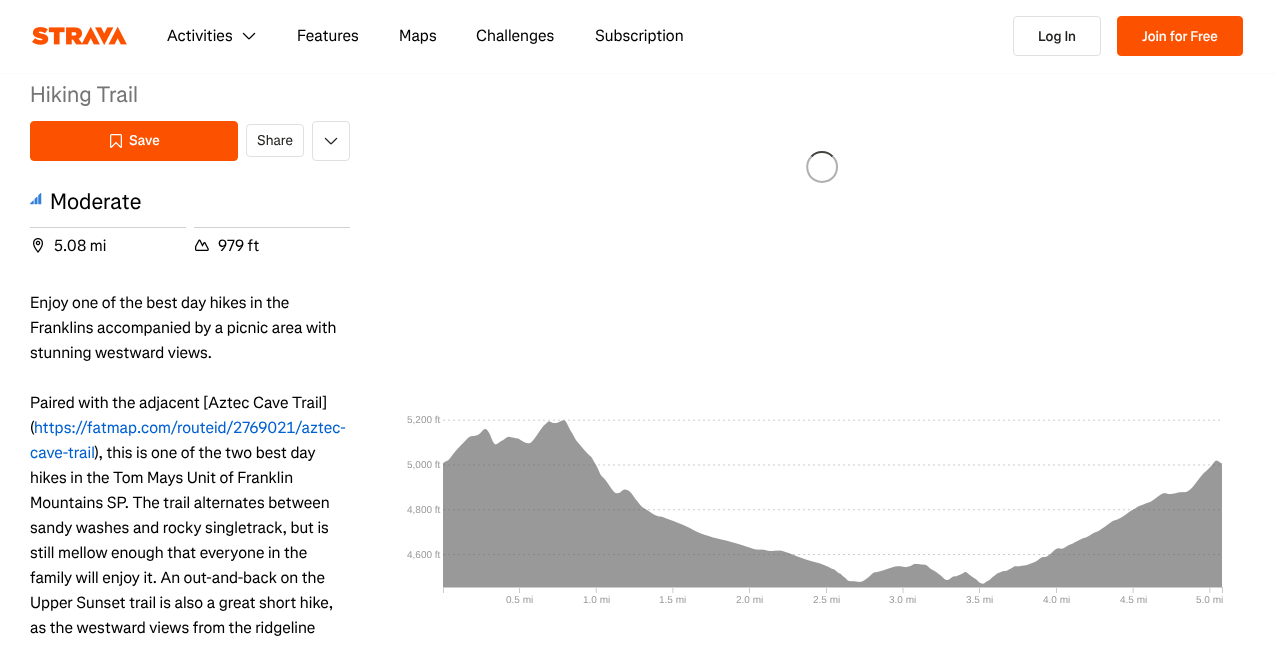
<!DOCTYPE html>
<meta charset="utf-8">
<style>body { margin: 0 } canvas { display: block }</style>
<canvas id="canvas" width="1275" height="647"></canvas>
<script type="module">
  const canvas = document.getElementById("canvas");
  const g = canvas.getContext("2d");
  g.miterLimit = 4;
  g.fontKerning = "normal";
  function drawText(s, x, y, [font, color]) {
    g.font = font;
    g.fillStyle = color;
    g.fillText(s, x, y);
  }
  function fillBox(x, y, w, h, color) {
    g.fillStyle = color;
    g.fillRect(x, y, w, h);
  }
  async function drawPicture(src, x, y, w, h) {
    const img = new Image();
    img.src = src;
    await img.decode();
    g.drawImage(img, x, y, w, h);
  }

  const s1 = ["16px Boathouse", "#000000"];
  const s2 = ["500 14px Boathouse", "#21211F"];
  const s3 = ["500 14px Boathouse", "#FFFFFF"];
  const s4 = ["22px Boathouse", "#757575"];
  const s5 = ["14px Boathouse", "#21211F"];
  const s6 = ["22px Boathouse", "#000000"];
  const s7 = ["16px Boathouse", "#0060D0"];
  const s8 = ["10px Liberation Sans", "#999999"];

  fillBox(0, 0, 1275, 647, "#FFFFFF");
  fillBox(0, 73, 1275, 1, "#FAFAFA");
  await drawPicture("pic1.png", 32, 26, 95, 19);
  drawText("Activities", 167, 41, s1);
  await drawPicture("pic2.png", 242, 32, 14, 8);
  drawText("Features", 297, 41, s1);
  drawText("Maps", 399, 41, s1);
  drawText("Challenges", 476, 41, s1);
  drawText("Subscription", 595, 41, s1);
  g.beginPath();
  g.roundRect(1013.5, 16.5, 87, 39, 3.5);
  g.strokeStyle = "#E0E0DE";
  g.stroke();
  drawText("Log In", 1038, 41, s2);
  g.fillStyle = "#FC5200";
  g.beginPath();
  g.roundRect(1117.5, 16.5, 125, 39, 3.5);
  g.fill();
  g.strokeStyle = "#FC5200";
  g.stroke();
  drawText("Join for Free", 1142, 41, s3);
  drawText("Hiking Trail", 30, 102, s4);
  g.fillStyle = "#FC5200";
  g.beginPath();
  g.roundRect(30.5, 121.5, 207, 39, 3.5);
  g.fill();
  g.stroke();
  await drawPicture("pic3.png", 110, 134, 12, 14);
  drawText("Save", 129, 145, s3);
  g.beginPath();
  g.roundRect(246.5, 124.5, 57, 32, 3.5);
  g.strokeStyle = "#E0E0DE";
  g.stroke();
  drawText("Share", 257, 145, s5);
  g.beginPath();
  g.roundRect(312.5, 121.5, 37, 39, 3.5);
  g.stroke();
  await drawPicture("pic4.png", 324, 137, 14, 8);
  await drawPicture("pic5.png", 30, 193, 12, 12);
  drawText("Moderate", 50, 209, s6);
  fillBox(30, 227, 156, 1, "#D3D1CD");
  await drawPicture("pic6.png", 33, 238, 10, 15);
  drawText("5.08 mi", 54, 251, s1);
  fillBox(194, 227, 156, 1, "#D3D1CD");
  await drawPicture("pic7.png", 195, 239, 14, 12);
  drawText("979 ft", 218, 251, s1);
  drawText("Enjoy one of the best day hikes in the", 30, 308, s1);
  drawText("Franklins accompanied by a picnic area with", 30, 333, s1);
  drawText("stunning westward views.", 30, 358, s1);
  drawText("Paired with the adjacent [Aztec Cave Trail]", 30, 408, s1);
  drawText("(", 30, 433, s1);
  drawText("https://fatmap.com/routeid/2769021/aztec-", 34, 433, s7);
  drawText("cave-trail", 30, 458, s7);
  drawText("), this is one of the two best day", 94, 458, s1);
  drawText("hikes in the Tom Mays Unit of Franklin", 30, 483, s1);
  drawText("Mountains SP. The trail alternates between", 30, 508, s1);
  drawText("sandy washes and rocky singletrack, but is", 30, 533, s1);
  drawText("still mellow enough that everyone in the", 30, 558, s1);
  drawText("family will enjoy it. An out-and-back on the", 30, 583, s1);
  drawText("Upper Sunset trail is also a great short hike,", 30, 608, s1);
  drawText("as the westward views from the ridgeline", 30, 633, s1);
  g.beginPath();
  g.moveTo(811.5, 156.5);
  g.bezierCurveTo(817, 150.5, 827, 150.5, 832.5, 156.5);
  g.strokeStyle = "#43423F";
  g.lineWidth = 2;
  g.stroke();
  g.beginPath();
  g.moveTo(832.5, 156.5);
  g.bezierCurveTo(835.5, 159, 837, 163, 837, 167);
  g.bezierCurveTo(837, 185, 811, 187.5, 807.5, 170);
  g.bezierCurveTo(806.5, 165, 808, 160, 811.5, 156.5);
  g.strokeStyle = "rgba(67, 66, 63, 0.42)";
  g.stroke();
  drawText("5,200 ft", 407, 423, s8);
  await drawPicture("pic8.png", 443, 419, 780, 174);
  drawText("5,000 ft", 407, 468, s8);
  drawText("4,800 ft", 407, 513, s8);
  drawText("4,600 ft", 407, 558, s8);
  drawText("0.5 mi", 506, 603, s8);
  drawText("1.0 mi", 583, 603, s8);
  drawText("1.5 mi", 659, 603, s8);
  drawText("2.0 mi", 736, 603, s8);
  drawText("2.5 mi", 813, 603, s8);
  drawText("3.0 mi", 889, 603, s8);
  drawText("3.5 mi", 966, 603, s8);
  drawText("4.0 mi", 1043, 603, s8);
  drawText("4.5 mi", 1120, 603, s8);
  drawText("5.0 mi", 1196, 603, s8);
</script>
